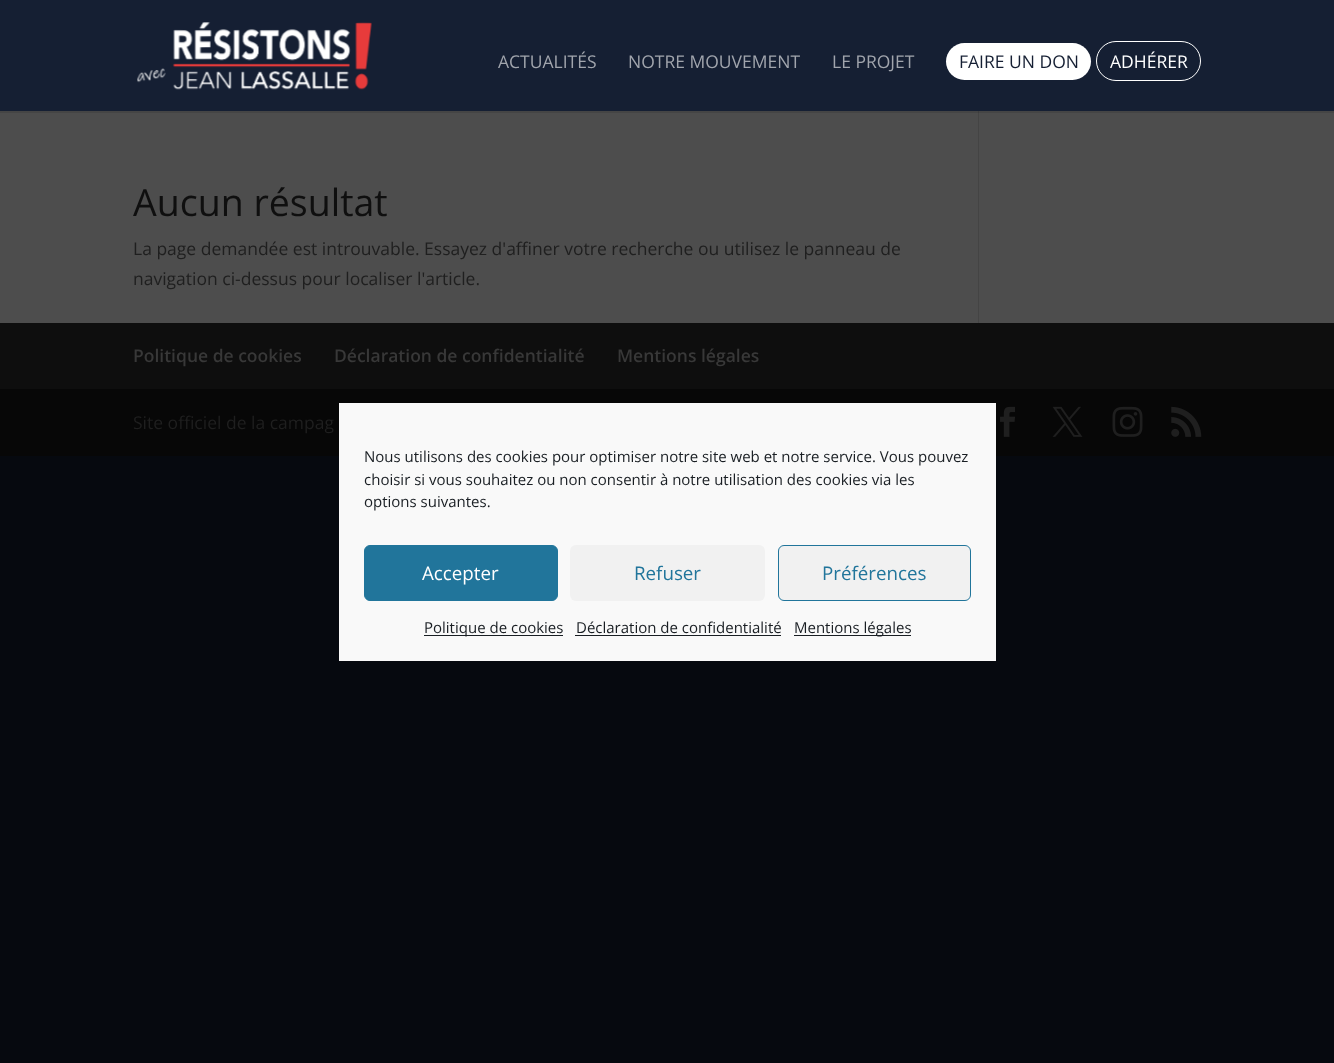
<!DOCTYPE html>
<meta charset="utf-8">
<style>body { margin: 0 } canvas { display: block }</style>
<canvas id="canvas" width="1334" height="1063"></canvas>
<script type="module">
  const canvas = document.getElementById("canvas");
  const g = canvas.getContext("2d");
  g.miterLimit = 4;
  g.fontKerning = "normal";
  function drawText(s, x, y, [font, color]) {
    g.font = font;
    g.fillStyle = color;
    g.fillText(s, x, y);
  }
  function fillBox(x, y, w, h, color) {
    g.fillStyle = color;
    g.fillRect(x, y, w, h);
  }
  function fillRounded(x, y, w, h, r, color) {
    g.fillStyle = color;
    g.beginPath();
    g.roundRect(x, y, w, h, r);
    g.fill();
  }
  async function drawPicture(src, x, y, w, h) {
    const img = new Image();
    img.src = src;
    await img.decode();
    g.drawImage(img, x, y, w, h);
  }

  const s1 = ["17.5px Open Sans", "#A1A5AD"];
  const s2 = ["17.5px Open Sans", "#151F33"];
  const s3 = ["17.5px Open Sans", "#FFFFFF"];
  const s4 = ["37.5px Open Sans", "#0F0F0F"];
  const s5 = ["17.5px Open Sans", "#1F1F1F"];
  const s6 = ["600 17.5px Open Sans", "#383838"];
  const s7 = ["15px Open Sans", "#191E23"];
  const s8 = ["18.75px Open Sans", "#FFFFFF"];
  const s9 = ["18.75px Open Sans", "#21759B"];

  fillBox(0, 0, 1334, 1063, "#06090F");
  fillBox(0, 0, 1334, 111, "#151F33");
  await drawPicture("pic1.png", 137, 22, 235, 68);
  drawText("ACTUALITÉS", 498, 68, s1);
  drawText("NOTRE MOUVEMENT", 628, 68, s1);
  drawText("LE PROJET", 832, 68, s1);
  fillRounded(946, 43, 145, 37, 18.5, "#FFFFFF");
  drawText("FAIRE UN DON", 959, 68, s2);
  g.beginPath();
  g.roundRect(1096.5, 41.5, 104, 39, 19.5);
  g.strokeStyle = "#FFFFFF";
  g.stroke();
  drawText("ADHÉRER", 1110, 68, s3);
  fillBox(0, 113, 1334, 210, "#4D4D4D");
  fillBox(0, 111, 1334, 2, "#454545");
  drawText("Aucun résultat", 133, 216, s4);
  drawText("La page demandée est introuvable. Essayez d'affiner votre recherche ou utilisez le panneau de", 133, 255, s5);
  drawText("navigation ci-dessus pour localiser l'article.", 133, 285, s5);
  fillBox(978, 111, 1, 212, "#444444");
  fillBox(978, 111, 1, 2, "#3D3D3D");
  fillBox(0, 323, 1334, 66, "#0E0E0E");
  drawText("Politique de cookies", 133, 362, s6);
  drawText("Déclaration de confidentialité", 334, 362, s6);
  drawText("Mentions légales", 617, 362, s6);
  fillBox(0, 389, 1334, 67, "#070707");
  drawText("Site officiel de la campag", 133, 429, s5);
  await drawPicture("pic2.png", 1000, 406, 15, 31);
  await drawPicture("pic3.png", 1052, 406, 31, 31);
  await drawPicture("pic4.png", 1112, 406, 31, 31);
  await drawPicture("pic5.png", 1171, 406, 31, 31);
  fillBox(339, 403, 657, 258, "#F9F9F9");
  drawText("Nous utilisons des cookies pour optimiser notre site web et notre service. Vous pouvez", 364, 462, s7);
  drawText("choisir si vous souhaitez ou non consentir à notre utilisation des cookies via les", 364, 485, s7);
  drawText("options suivantes.", 364, 507, s7);
  g.fillStyle = "#21759B";
  g.beginPath();
  g.roundRect(364.5, 545.5, 193, 55, 5.5);
  g.fill();
  g.strokeStyle = "#21759B";
  g.stroke();
  drawText("Accepter", 422, 580, s8);
  fillRounded(570, 545, 195, 56, 6, "#F1F1F1");
  drawText("Refuser", 634, 580, s9);
  g.fillStyle = "#F1F1F1";
  g.beginPath();
  g.roundRect(778.5, 545.5, 192, 55, 5.5);
  g.fill();
  g.stroke();
  drawText("Préférences", 822, 580, s9);
  fillBox(424, 635, 139, 1, "#191E23");
  drawText("Politique de cookies", 424, 633, s7);
  drawText("Déclaration de confidentialité", 576, 633, s7);
  fillBox(575, 635, 206, 1, "#191E23");
  fillBox(794, 635, 117, 1, "#191E23");
  drawText("Mentions légales", 794, 633, s7);
</script>
